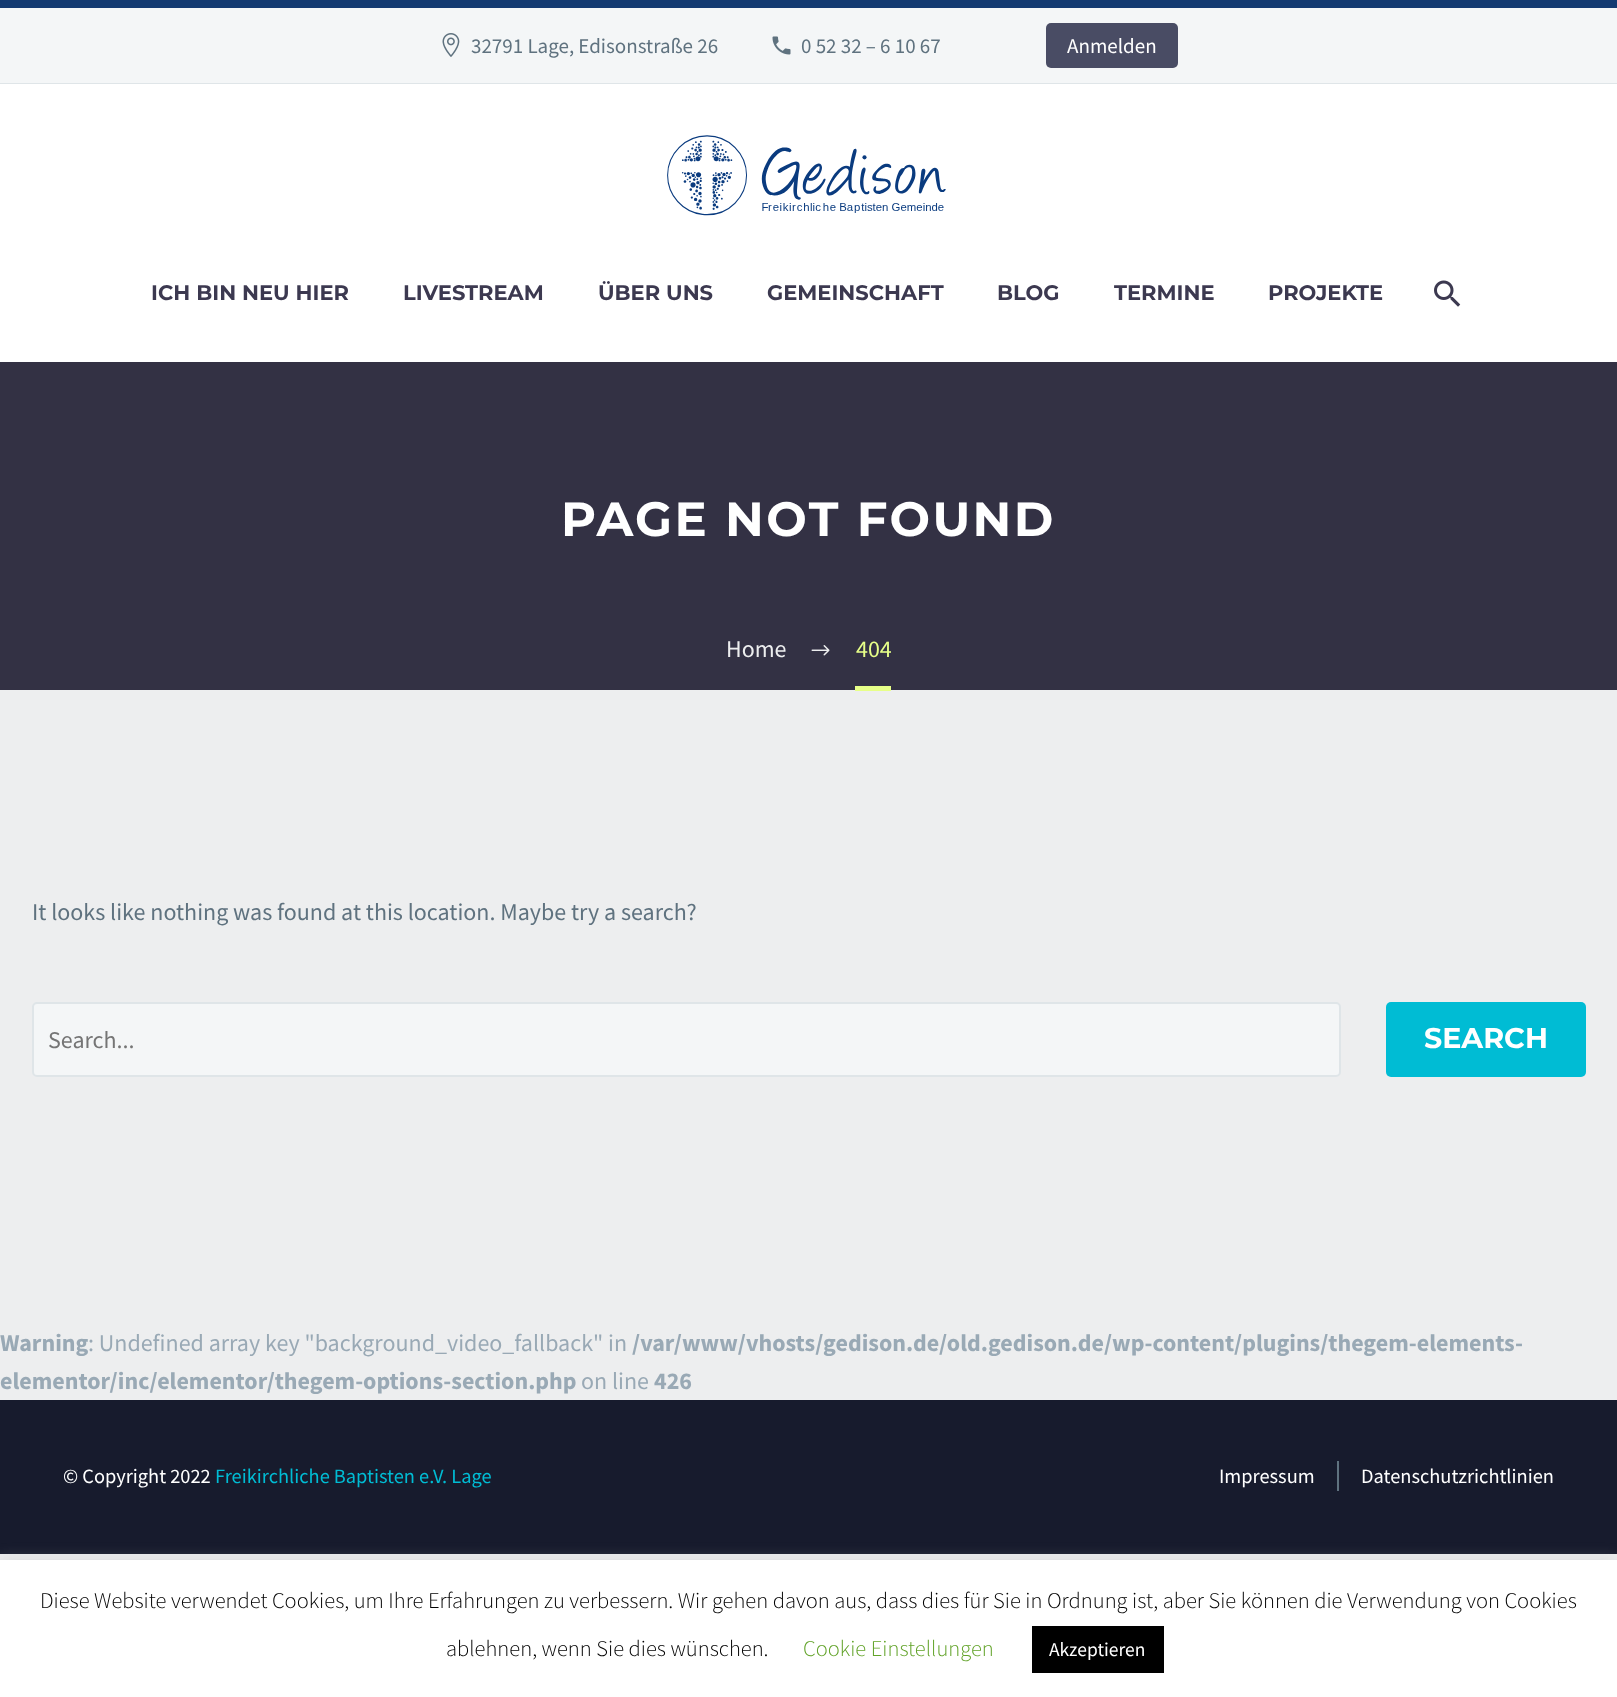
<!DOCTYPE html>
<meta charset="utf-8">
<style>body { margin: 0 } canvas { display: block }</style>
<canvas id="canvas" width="1617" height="1697"></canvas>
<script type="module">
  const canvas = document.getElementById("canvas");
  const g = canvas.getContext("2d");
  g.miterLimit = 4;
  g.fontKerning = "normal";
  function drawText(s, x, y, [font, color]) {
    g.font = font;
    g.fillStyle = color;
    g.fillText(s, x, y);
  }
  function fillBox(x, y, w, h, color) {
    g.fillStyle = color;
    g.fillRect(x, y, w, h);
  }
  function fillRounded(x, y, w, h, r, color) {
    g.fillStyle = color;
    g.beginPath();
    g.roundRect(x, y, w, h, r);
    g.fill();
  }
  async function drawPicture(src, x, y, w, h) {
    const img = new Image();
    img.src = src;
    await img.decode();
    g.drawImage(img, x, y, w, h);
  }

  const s1 = ["21px Source Sans Pro", "#5F727F"];
  const s2 = ["21px Source Sans Pro", "#FFFFFF"];
  const s3 = ["bold 21px Montserrat", "#3C3950"];
  const s4 = ["bold 48px Montserrat", "#FFFFFF"];
  const s5 = ["24px Source Sans Pro", "#EDEEEF"];
  const s6 = ["24px Source Sans Pro", "#E7FF89"];
  const s7 = ["24px Source Sans Pro", "#5F727F"];
  const s8 = ["24px Source Sans Pro", "#757575"];
  const s9 = ["bold 28.5px Montserrat", "#FFFFFF"];
  const s10 = ["bold 24px Source Sans Pro", "#99A9B5"];
  const s11 = ["24px Source Sans Pro", "#99A9B5"];
  const s12 = ["20.4px Source Sans Pro", "#FFFFFF"];
  const s13 = ["20.4px Source Sans Pro", "#00BCD4"];
  const s14 = ["300 22.5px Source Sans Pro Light", "#000000"];
  const s15 = ["300 22.5px Source Sans Pro Light", "#62A329"];
  const s16 = ["19.5px Source Sans Pro", "#FFFFFF"];

  fillBox(0, 0, 1617, 1697, "#EDEEEF");
  fillBox(0, 8, 1617, 75, "#F4F6F7");
  fillBox(0, 0, 1617, 8, "#133A71");
  fillBox(0, 83, 1617, 1, "#DFE5E8");
  await drawPicture("pic1.png", 442, 33, 18, 24);
  drawText("32791 Lage, Edisonstraße 26", 471, 53, s1);
  await drawPicture("pic2.png", 772, 36, 19, 19);
  drawText("0 52 32 – 6 10 67", 801, 53, s1);
  fillRounded(1046, 23, 132, 45, 5, "#494C64");
  drawText("Anmelden", 1067, 53, s2);
  fillBox(0, 84, 1617, 278, "#FFFFFF");
  await drawPicture("pic3.png", 667, 135, 279, 81);
  drawText("ICH BIN NEU HIER", 151, 300, s3);
  drawText("LIVESTREAM", 403, 300, s3);
  drawText("ÜBER UNS", 598, 300, s3);
  drawText("GEMEINSCHAFT", 767, 300, s3);
  drawText("BLOG", 997, 300, s3);
  drawText("TERMINE", 1114, 300, s3);
  drawText("PROJEKTE", 1268, 300, s3);
  await drawPicture("pic4.png", 1434, 280, 27, 27);
  fillBox(0, 362, 1617, 328, "#333144");
  g.letterSpacing = "2.4px";
  drawText("PAGE NOT FOUND", 561, 536, s4);
  g.letterSpacing = "0px";
  drawText("Home", 726, 657, s5);
  await drawPicture("pic5.png", 811, 645, 19, 11);
  fillBox(855, 686, 36, 5, "#E7FF89");
  drawText("404", 856, 657, s6);
  drawText("It looks like nothing was found at this location. Maybe try a search?", 32, 920, s7);
  g.fillStyle = "#F4F6F7";
  g.beginPath();
  g.roundRect(33, 1003, 1307, 73, 4);
  g.fill();
  g.strokeStyle = "#DFE5E8";
  g.lineWidth = 2;
  g.stroke();
  drawText("Search...", 48, 1048, s8);
  fillRounded(1386, 1002, 200, 75, 5, "#00BCD4");
  drawText("SEARCH", 1424, 1048, s9);
  drawText("Warning", 0, 1351, s10);
  drawText(": Undefined array key \"background_video_fallback\" in", 88, 1351, s11);
  drawText("/var/www/vhosts/gedison.de/old.gedison.de/wp-content/plugins/thegem-elements-", 632, 1351, s10);
  drawText("elementor/inc/elementor/thegem-options-section.php", 0, 1389, s10);
  drawText("on line", 581, 1389, s11);
  drawText("426", 654, 1389, s10);
  fillBox(0, 1400, 1617, 154, "#171B2D");
  drawText("© Copyright 2022", 63, 1483, s12);
  drawText("Freikirchliche Baptisten e.V. Lage", 215, 1483, s13);
  drawText("Impressum", 1219, 1483, s12);
  fillBox(1337, 1461, 2, 30, "#5F727F");
  drawText("Datenschutzrichtlinien", 1361, 1483, s12);
  g.fillStyle = "rgba(172, 171, 171, 0.3)";
  g.filter = "blur(7.5px)";
  g.beginPath();
  g.rect(0, 1559, 1617, 138);
  g.fill();
  g.filter = "none";
  fillBox(0, 1560, 1617, 137, "#FFFFFF");
  drawText("Diese Website verwendet Cookies, um Ihre Erfahrungen zu verbessern. Wir gehen davon aus, dass dies für Sie in Ordnung ist, aber Sie können die Verwendung von Cookies", 40, 1608, s14);
  drawText("ablehnen, wenn Sie dies wünschen.", 446, 1656, s14);
  drawText("Cookie Einstellungen", 803, 1656, s15);
  fillBox(1032, 1626, 132, 47, "#000000");
  drawText("Akzeptieren", 1049, 1656, s16);
</script>
